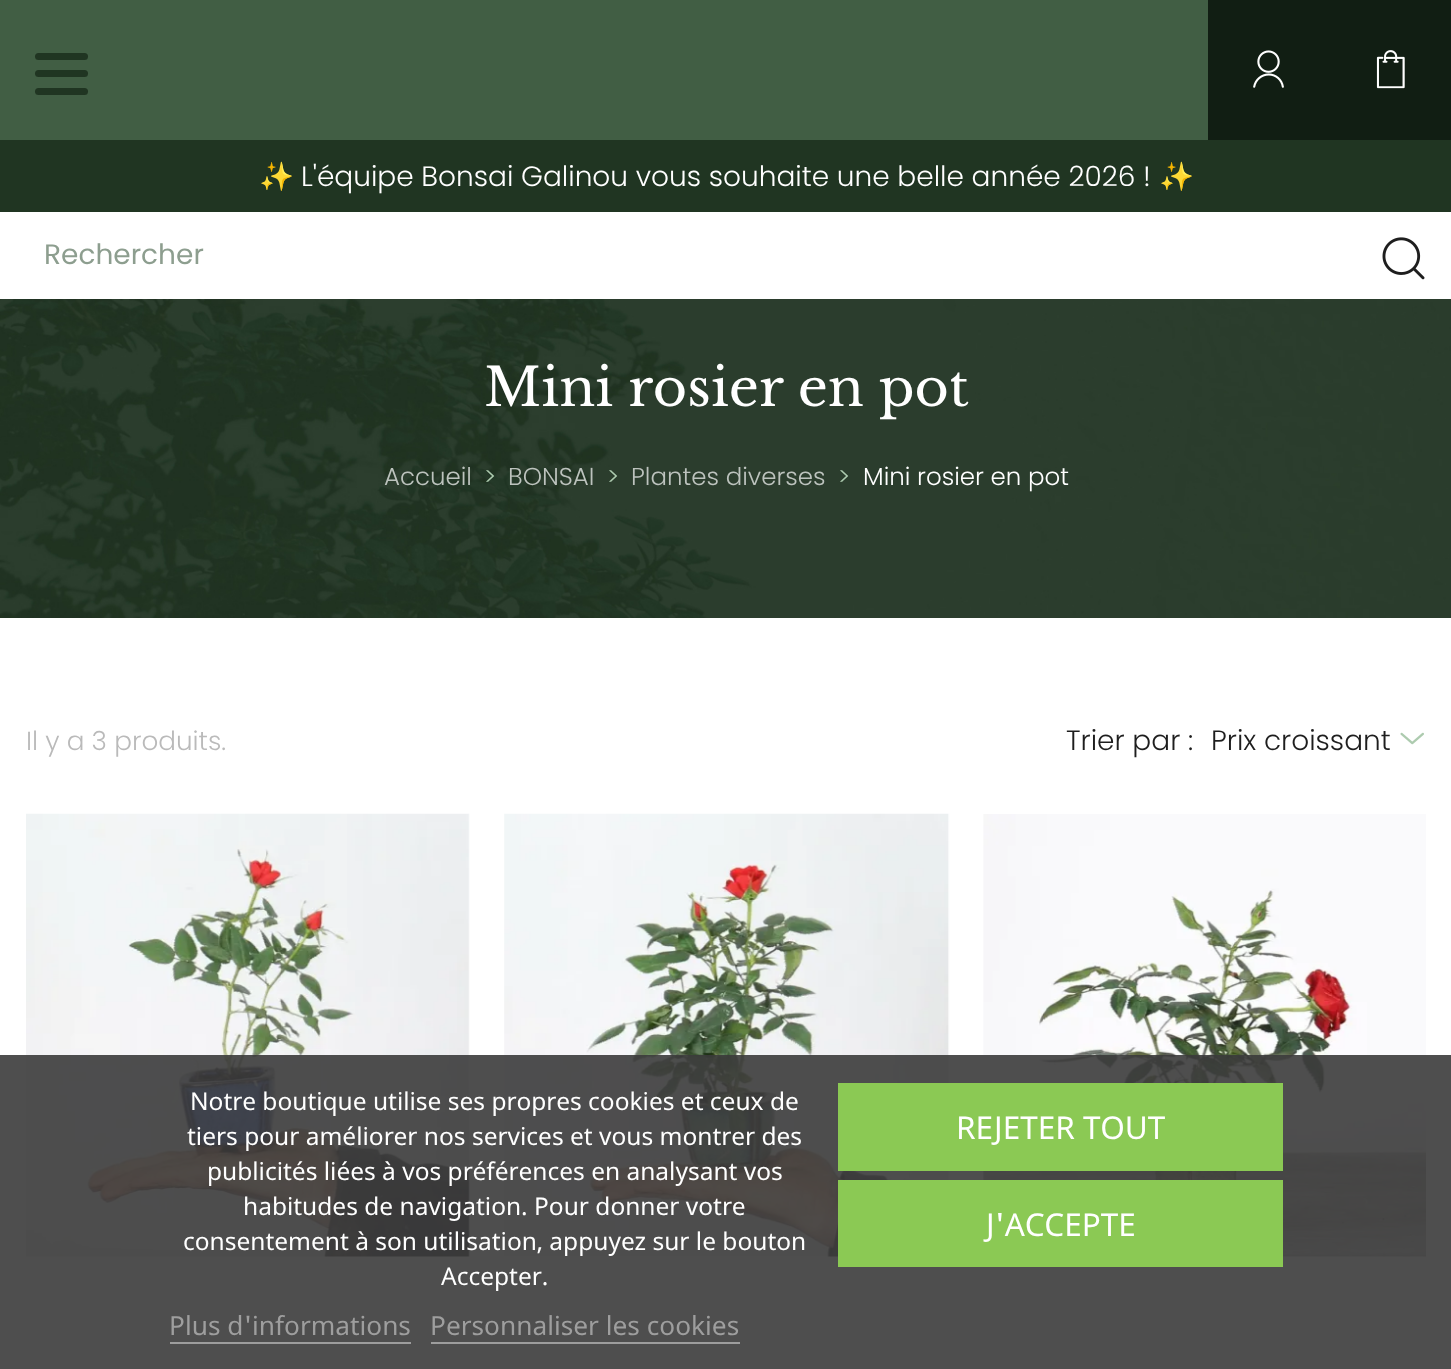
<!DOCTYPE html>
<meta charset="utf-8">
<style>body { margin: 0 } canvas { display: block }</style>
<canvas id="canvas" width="1451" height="1369"></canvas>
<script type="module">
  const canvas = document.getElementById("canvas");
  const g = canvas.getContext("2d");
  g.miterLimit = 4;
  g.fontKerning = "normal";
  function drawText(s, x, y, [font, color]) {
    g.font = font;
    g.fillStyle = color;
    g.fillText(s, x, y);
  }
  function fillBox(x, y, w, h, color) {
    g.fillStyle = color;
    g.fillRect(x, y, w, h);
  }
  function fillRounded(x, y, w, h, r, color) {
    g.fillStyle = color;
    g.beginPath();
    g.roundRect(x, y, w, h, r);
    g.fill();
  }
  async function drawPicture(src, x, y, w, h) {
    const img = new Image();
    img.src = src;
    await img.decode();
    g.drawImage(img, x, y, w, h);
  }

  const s1 = ["28px Noto Color Emoji", "#FFFFFF"];
  const s2 = ["300 28px Poppins", "#FFFFFF"];
  const s3 = ["28px Poppins", "#8D9E8F"];
  const s4 = ["52.5px Libre Baskerville", "#FFFFFF"];
  const s5 = ["300 24.5px Poppins", "#BDC3BE"];
  const s6 = ["300 24.5px Poppins", "#ADCBAF"];
  const s7 = ["300 24.5px Poppins", "#FFFFFF"];
  const s8 = ["300 26.25px Poppins", "#BABABA"];
  const s9 = ["300 28px Poppins", "#1E1E1E"];
  const s10 = ["24.5px Noto Sans", "#FFFFFF"];
  const s11 = ["26.25px Noto Sans", "#9E9E9E"];
  const s12 = ["31.5px Noto Sans", "#FFFFFF"];

  fillBox(0, 0, 1451, 1369, "#FFFFFF");
  fillBox(0, 0, 1208, 140, "#415E44");
  fillBox(1208, 0, 243, 140, "#111E13");
  await drawPicture("pic1.png", 1253, 50, 31, 38);
  fillRounded(35, 70, 53, 7, 3.5, "#203522");
  fillRounded(35, 53, 53, 7, 3.5, "#203522");
  fillRounded(35, 88, 53, 7, 3.5, "#203522");
  await drawPicture("pic2.png", 1376, 50, 29, 39);
  fillBox(0, 140, 1451, 72, "#203522");
  drawText("✨", 259, 186, s1);
  drawText("L'équipe Bonsai Galinou vous souhaite une belle année 2026 !", 301, 186, s2);
  drawText("✨", 1159, 186, s1);
  drawText("Rechercher", 44, 264, s3);
  await drawPicture("pic3.png", 1382, 237, 43, 43);
  await drawPicture("pic4.png", 0, 299, 1451, 319);
  drawText("Mini rosier en pot", 484, 406, s4);
  drawText("Accueil", 384, 485, s5);
  drawText(">", 484, 485, s6);
  drawText("BONSAI", 508, 485, s5);
  drawText(">", 607, 485, s6);
  drawText("Plantes diverses", 631, 485, s5);
  drawText(">", 838, 485, s6);
  drawText("Mini rosier en pot", 863, 485, s7);
  drawText("Il y a 3 produits.", 26, 750, s8);
  drawText("Trier par :", 1066, 750, s9);
  drawText("Prix croissant", 1211, 750, s9);
  await drawPicture("pic5.png", 1400, 732, 24, 13);
  await drawPicture("pic6.png", 26, 813, 444, 444);
  await drawPicture("pic7.png", 504, 813, 446, 444);
  await drawPicture("pic8.png", 983, 814, 443, 443);
  fillBox(0, 1055, 1451, 314, "rgba(59, 59, 59, 0.9)");
  drawText("Notre boutique utilise ses propres cookies et ceux de", 190, 1110, s10);
  drawText("tiers pour améliorer nos services et vous montrer des", 187, 1145, s10);
  drawText("publicités liées à vos préférences en analysant vos", 207, 1180, s10);
  drawText("habitudes de navigation. Pour donner votre", 243, 1215, s10);
  drawText("consentement à son utilisation, appuyez sur le bouton", 183, 1250, s10);
  drawText("Accepter.", 441, 1285, s10);
  drawText("Plus d'informations", 169, 1335, s11);
  fillBox(170, 1342, 241, 2, "rgba(255, 255, 255, 0.45)");
  drawText("Personnaliser les cookies", 430, 1335, s11);
  fillBox(431, 1342, 309, 2, "rgba(255, 255, 255, 0.45)");
  fillBox(838, 1083, 445, 88, "#8BC954");
  drawText("REJETER TOUT", 956, 1139, s12);
  fillBox(838, 1180, 445, 87, "#8BC954");
  drawText("J'ACCEPTE", 986, 1236, s12);
</script>
